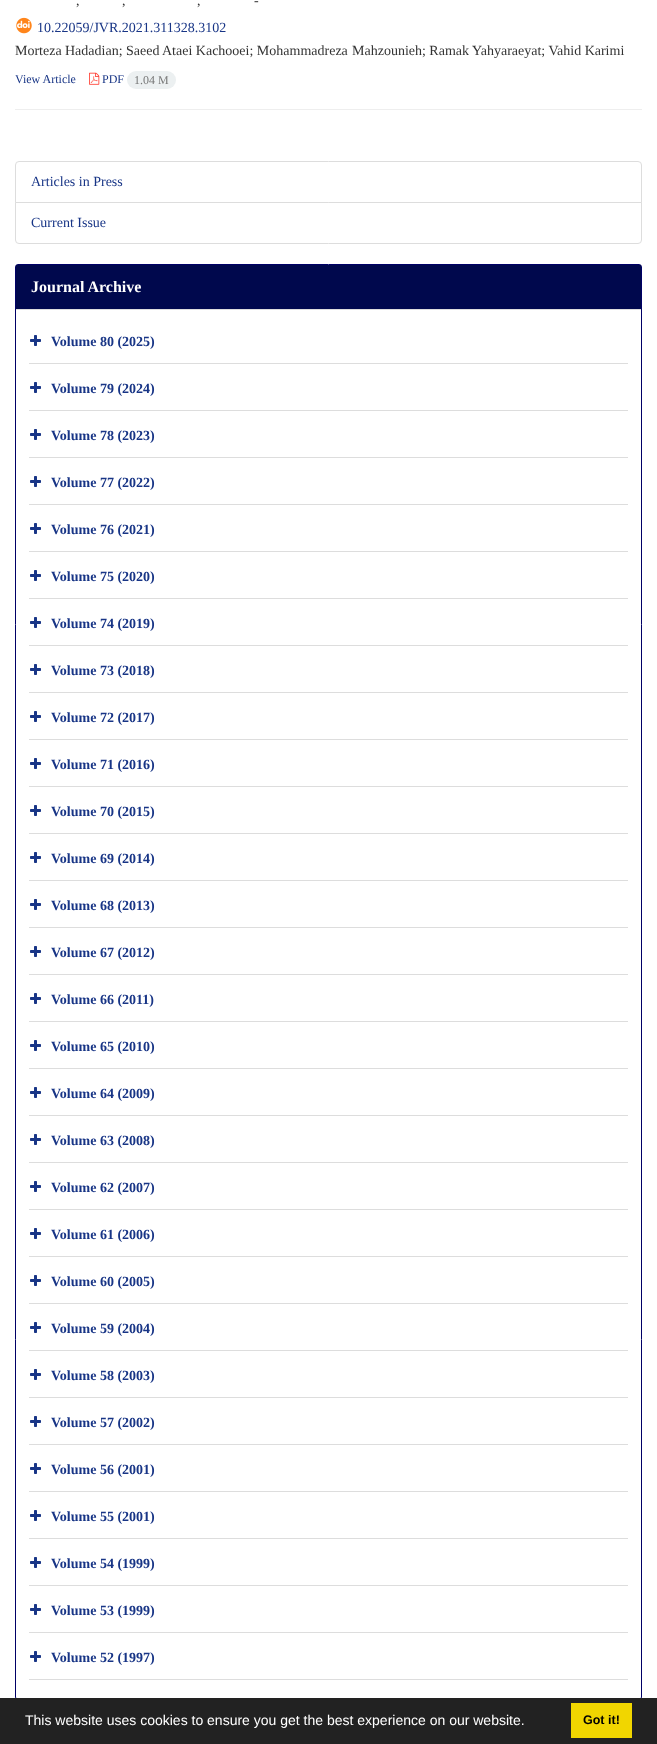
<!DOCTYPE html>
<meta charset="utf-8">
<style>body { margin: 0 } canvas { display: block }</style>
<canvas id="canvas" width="657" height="1744"></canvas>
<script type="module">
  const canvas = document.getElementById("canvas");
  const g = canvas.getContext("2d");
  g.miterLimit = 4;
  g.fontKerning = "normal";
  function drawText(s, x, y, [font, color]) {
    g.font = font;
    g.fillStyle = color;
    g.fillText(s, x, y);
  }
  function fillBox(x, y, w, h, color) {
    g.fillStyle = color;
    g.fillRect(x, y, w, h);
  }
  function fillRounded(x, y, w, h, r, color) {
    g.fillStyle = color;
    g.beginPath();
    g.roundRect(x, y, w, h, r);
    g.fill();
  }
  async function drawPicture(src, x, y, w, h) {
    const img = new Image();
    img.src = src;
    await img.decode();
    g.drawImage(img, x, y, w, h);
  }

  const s1 = ["14px Tinos", "#333333"];
  const s2 = ["14px Tinos", "#183586"];
  const s3 = ["12px Tinos", "#183586"];
  const s4 = ["12px Tinos", "#777777"];
  const s5 = ["bold 16px Tinos", "#FFFFFF"];
  const s6 = ["bold 14px Tinos", "#183586"];
  const s7 = ["14px Liberation Sans", "#FFFFFF"];
  const s8 = ["bold 12.5px Liberation Sans", "#000000"];

  fillBox(0, 0, 657, 1744, "#FFFFFF");
  drawText("-", 254, 5, s1);
  drawText(",", 76, 5, s1);
  drawText(",", 122, 5, s1);
  drawText(",", 197, 5, s1);
  await drawPicture("pic1.png", 16, 17, 16, 17);
  drawText("10.22059/JVR.2021.311328.3102", 37, 32, s2);
  drawText("Morteza", 15, 55, s1);
  drawText("Hadadian; Saeed", 65, 55, s1);
  drawText("Ataei Kachooei; Mohammadreza", 162, 55, s1);
  drawText("Mahzounieh; Ramak", 352, 55, s1);
  drawText("Yahyaraeyat; Vahid Karimi", 472, 55, s1);
  drawText("View Article", 15, 83, s3);
  await drawPicture("pic2.png", 89, 72, 11, 13);
  drawText("PDF", 102, 83, s3);
  fillRounded(127, 71, 49, 18, 9, "#ECF0F1");
  drawText("1.04 M", 134, 84, s4);
  fillBox(15, 109, 627, 1, "#EEEEEE");
  g.beginPath();
  g.roundRect(15.5, 161.5, 626, 41, [3.5, 3.5, 0, 0]);
  g.strokeStyle = "#DDDDDD";
  g.stroke();
  drawText("Articles in Press", 31, 186, s2);
  g.fillStyle = "#FFFFFF";
  g.beginPath();
  g.roundRect(15.5, 202.5, 626, 41, [0, 0, 3.5, 3.5]);
  g.fill();
  g.stroke();
  drawText("Current Issue", 31, 227, s2);
  g.beginPath();
  g.roundRect(15.5, 264.5, 626, 1435, 2.5);
  g.strokeStyle = "#000066";
  g.stroke();
  fillBox(16, 265, 625, 44, "#00084D");
  fillBox(16, 309, 625, 1, "#DDDDDD");
  drawText("Journal Archive", 31, 292, s5);
  fillBox(29, 363, 599, 1, "#DDDDDD");
  await drawPicture("pic3.png", 30, 335, 11, 11);
  drawText("Volume 80 (2025)", 51, 346, s6);
  fillBox(29, 410, 599, 1, "#DDDDDD");
  await drawPicture("pic3.png", 30, 382, 11, 11);
  drawText("Volume 79 (2024)", 51, 393, s6);
  fillBox(29, 457, 599, 1, "#DDDDDD");
  await drawPicture("pic3.png", 30, 429, 11, 11);
  drawText("Volume 78 (2023)", 51, 440, s6);
  fillBox(29, 504, 599, 1, "#DDDDDD");
  await drawPicture("pic3.png", 30, 476, 11, 11);
  drawText("Volume 77 (2022)", 51, 487, s6);
  fillBox(29, 551, 599, 1, "#DDDDDD");
  await drawPicture("pic3.png", 30, 523, 11, 11);
  drawText("Volume 76 (2021)", 51, 534, s6);
  fillBox(29, 598, 599, 1, "#DDDDDD");
  await drawPicture("pic3.png", 30, 570, 11, 11);
  drawText("Volume 75 (2020)", 51, 581, s6);
  fillBox(29, 645, 599, 1, "#DDDDDD");
  await drawPicture("pic3.png", 30, 617, 11, 11);
  drawText("Volume 74 (2019)", 51, 628, s6);
  fillBox(29, 692, 599, 1, "#DDDDDD");
  await drawPicture("pic3.png", 30, 664, 11, 11);
  drawText("Volume 73 (2018)", 51, 675, s6);
  fillBox(29, 739, 599, 1, "#DDDDDD");
  await drawPicture("pic3.png", 30, 711, 11, 11);
  drawText("Volume 72 (2017)", 51, 722, s6);
  fillBox(29, 786, 599, 1, "#DDDDDD");
  await drawPicture("pic3.png", 30, 758, 11, 11);
  drawText("Volume 71 (2016)", 51, 769, s6);
  fillBox(29, 833, 599, 1, "#DDDDDD");
  await drawPicture("pic3.png", 30, 805, 11, 11);
  drawText("Volume 70 (2015)", 51, 816, s6);
  fillBox(29, 880, 599, 1, "#DDDDDD");
  await drawPicture("pic3.png", 30, 852, 11, 11);
  drawText("Volume 69 (2014)", 51, 863, s6);
  fillBox(29, 927, 599, 1, "#DDDDDD");
  await drawPicture("pic3.png", 30, 899, 11, 11);
  drawText("Volume 68 (2013)", 51, 910, s6);
  fillBox(29, 974, 599, 1, "#DDDDDD");
  await drawPicture("pic3.png", 30, 946, 11, 11);
  drawText("Volume 67 (2012)", 51, 957, s6);
  fillBox(29, 1021, 599, 1, "#DDDDDD");
  await drawPicture("pic3.png", 30, 993, 11, 11);
  drawText("Volume 66 (2011)", 51, 1004, s6);
  fillBox(29, 1068, 599, 1, "#DDDDDD");
  await drawPicture("pic3.png", 30, 1040, 11, 11);
  drawText("Volume 65 (2010)", 51, 1051, s6);
  fillBox(29, 1115, 599, 1, "#DDDDDD");
  await drawPicture("pic3.png", 30, 1087, 11, 11);
  drawText("Volume 64 (2009)", 51, 1098, s6);
  fillBox(29, 1162, 599, 1, "#DDDDDD");
  await drawPicture("pic3.png", 30, 1134, 11, 11);
  drawText("Volume 63 (2008)", 51, 1145, s6);
  fillBox(29, 1209, 599, 1, "#DDDDDD");
  await drawPicture("pic3.png", 30, 1181, 11, 11);
  drawText("Volume 62 (2007)", 51, 1192, s6);
  fillBox(29, 1256, 599, 1, "#DDDDDD");
  await drawPicture("pic3.png", 30, 1228, 11, 11);
  drawText("Volume 61 (2006)", 51, 1239, s6);
  fillBox(29, 1303, 599, 1, "#DDDDDD");
  await drawPicture("pic3.png", 30, 1275, 11, 11);
  drawText("Volume 60 (2005)", 51, 1286, s6);
  fillBox(29, 1350, 599, 1, "#DDDDDD");
  await drawPicture("pic3.png", 30, 1322, 11, 11);
  drawText("Volume 59 (2004)", 51, 1333, s6);
  fillBox(29, 1397, 599, 1, "#DDDDDD");
  await drawPicture("pic3.png", 30, 1369, 11, 11);
  drawText("Volume 58 (2003)", 51, 1380, s6);
  fillBox(29, 1444, 599, 1, "#DDDDDD");
  await drawPicture("pic3.png", 30, 1416, 11, 11);
  drawText("Volume 57 (2002)", 51, 1427, s6);
  fillBox(29, 1491, 599, 1, "#DDDDDD");
  await drawPicture("pic3.png", 30, 1463, 11, 11);
  drawText("Volume 56 (2001)", 51, 1474, s6);
  fillBox(29, 1538, 599, 1, "#DDDDDD");
  await drawPicture("pic3.png", 30, 1510, 11, 11);
  drawText("Volume 55 (2001)", 51, 1521, s6);
  fillBox(29, 1585, 599, 1, "#DDDDDD");
  await drawPicture("pic3.png", 30, 1557, 11, 11);
  drawText("Volume 54 (1999)", 51, 1568, s6);
  fillBox(29, 1632, 599, 1, "#DDDDDD");
  await drawPicture("pic3.png", 30, 1604, 11, 11);
  drawText("Volume 53 (1999)", 51, 1615, s6);
  fillBox(29, 1679, 599, 1, "#DDDDDD");
  await drawPicture("pic3.png", 30, 1651, 11, 11);
  drawText("Volume 52 (1997)", 51, 1662, s6);
  fillBox(0, 1698, 657, 46, "#222222");
  drawText("This website uses cookies to ensure you get the best experience on our website.", 25, 1725, s7);
  fillBox(571, 1703, 61, 35, "#F1D600");
  drawText("Got it!", 583, 1724, s8);
</script>
